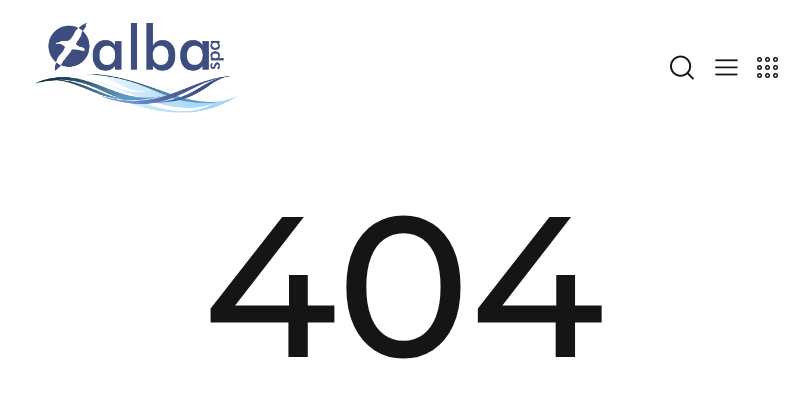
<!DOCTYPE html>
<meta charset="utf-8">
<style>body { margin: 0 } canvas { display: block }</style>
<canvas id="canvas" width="808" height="395"></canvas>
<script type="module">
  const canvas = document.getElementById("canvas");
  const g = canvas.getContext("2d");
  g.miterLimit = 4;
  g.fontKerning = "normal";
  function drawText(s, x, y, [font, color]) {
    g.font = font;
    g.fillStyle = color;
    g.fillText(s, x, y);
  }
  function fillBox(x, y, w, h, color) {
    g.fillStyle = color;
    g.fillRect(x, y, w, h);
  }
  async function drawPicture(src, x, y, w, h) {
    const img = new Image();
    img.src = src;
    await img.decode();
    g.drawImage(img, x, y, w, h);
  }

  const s1 = ["500 200px Montserrat", "#151515"];

  fillBox(0, 0, 808, 395, "#FFFFFF");
  await drawPicture("pic1.png", 35, 23, 202, 90);
  await drawPicture("pic2.png", 670, 55, 24, 25);
  await drawPicture("pic3.png", 715, 59, 23, 17);
  await drawPicture("pic4.png", 757, 57, 21, 21);
  drawText("404", 203, 357, s1);
</script>
